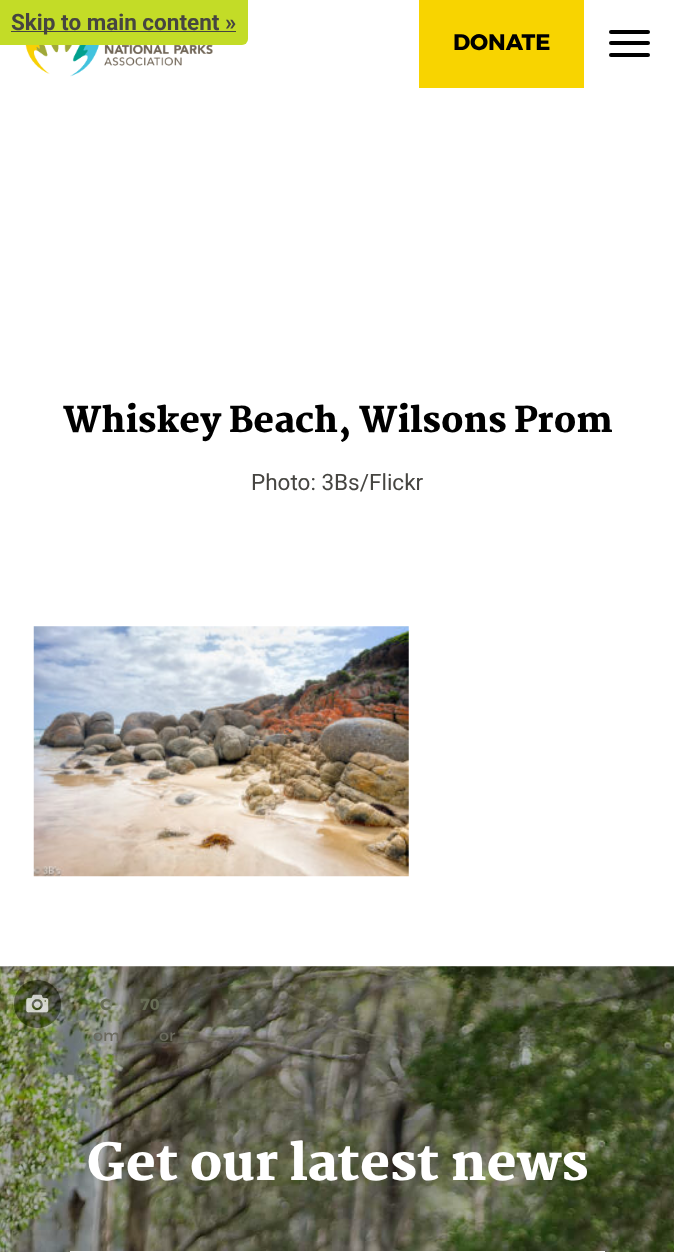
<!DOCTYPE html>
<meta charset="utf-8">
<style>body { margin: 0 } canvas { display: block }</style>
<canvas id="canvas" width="674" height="1252"></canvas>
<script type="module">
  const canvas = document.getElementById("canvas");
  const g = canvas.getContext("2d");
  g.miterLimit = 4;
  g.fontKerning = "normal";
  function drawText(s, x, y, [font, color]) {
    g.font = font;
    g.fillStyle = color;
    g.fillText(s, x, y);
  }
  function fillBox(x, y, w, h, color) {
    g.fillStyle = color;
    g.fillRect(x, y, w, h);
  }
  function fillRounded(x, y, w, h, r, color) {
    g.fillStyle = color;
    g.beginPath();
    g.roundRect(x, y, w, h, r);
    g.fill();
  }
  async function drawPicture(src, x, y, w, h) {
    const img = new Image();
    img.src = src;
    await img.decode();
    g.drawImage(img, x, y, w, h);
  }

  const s1 = ["bold 22.5px Roboto", "#464541"];
  const s2 = ["bold 22.5px Montserrat", "#000000"];
  const s3 = ["900 34.5px Martel", "#000000"];
  const s4 = ["22.5px Roboto", "#464541"];
  const s5 = ["bold 16px Montserrat", "#676C55"];
  const s6 = ["16px Montserrat", "#6B6A5E"];
  const s7 = ["900 50px Martel", "#FFFFFF"];

  fillBox(0, 0, 674, 1252, "#FFFFFF");
  g.fillStyle = "#C3DC27";
  g.beginPath();
  g.roundRect(0, 0, 248, 45, [0, 0, 6, 0]);
  g.fill();
  fillBox(11, 31, 225, 1, "#464541");
  drawText("Skip to main content »", 11, 30, s1);
  fillBox(419, 0, 165, 88, "#F8D400");
  drawText("DONATE", 453, 50, s2);
  fillRounded(609, 30, 41, 4, 2, "#000000");
  fillRounded(609, 41, 41, 4, 2, "#000000");
  fillRounded(609, 53, 41, 4, 2, "#000000");
  await drawPicture("pic1.png", 25, 45, 188, 32);
  drawText("Whiskey Beach, Wilsons Prom", 63, 432, s3);
  drawText("Photo: 3Bs/Flickr", 251, 490, s4);
  await drawPicture("pic2.png", 33, 626, 376, 251);
  await drawPicture("pic3.png", 0, 966, 674, 286);
  g.save();
  g.beginPath();
  g.moveTo(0, 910);
  g.lineTo(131, 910);
  g.lineTo(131, 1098);
  g.lineTo(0, 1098);
  g.closePath();
  g.moveTo(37.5, 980);
  g.bezierCurveTo(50.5, 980, 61, 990.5, 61, 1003.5);
  g.lineTo(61, 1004.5);
  g.bezierCurveTo(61, 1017.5, 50.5, 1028, 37.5, 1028);
  g.bezierCurveTo(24.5, 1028, 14, 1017.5, 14, 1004.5);
  g.lineTo(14, 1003.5);
  g.bezierCurveTo(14, 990.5, 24.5, 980, 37.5, 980);
  g.closePath();
  g.clip("evenodd");
  g.fillStyle = "rgba(255, 255, 255, 0.38)";
  g.filter = "blur(23px)";
  g.beginPath();
  g.roundRect(14, 980, 47, 48, 23.5);
  g.fill();
  g.filter = "none";
  g.restore();
  fillRounded(14, 980, 47, 48, 23.5, "rgba(0, 0, 0, 0.38)");
  await drawPicture("pic4.png", 26, 994, 23, 19);
  drawText("C", 100, 1010, s5);
  drawText("70", 140, 1010, s5);
  drawText("om", 93, 1041, s6);
  drawText("or", 159, 1041, s6);
  drawText("Get our latest news", 87, 1180, s7);
  fillBox(70, 1251, 535, 1, "#FFFFFF");
</script>
